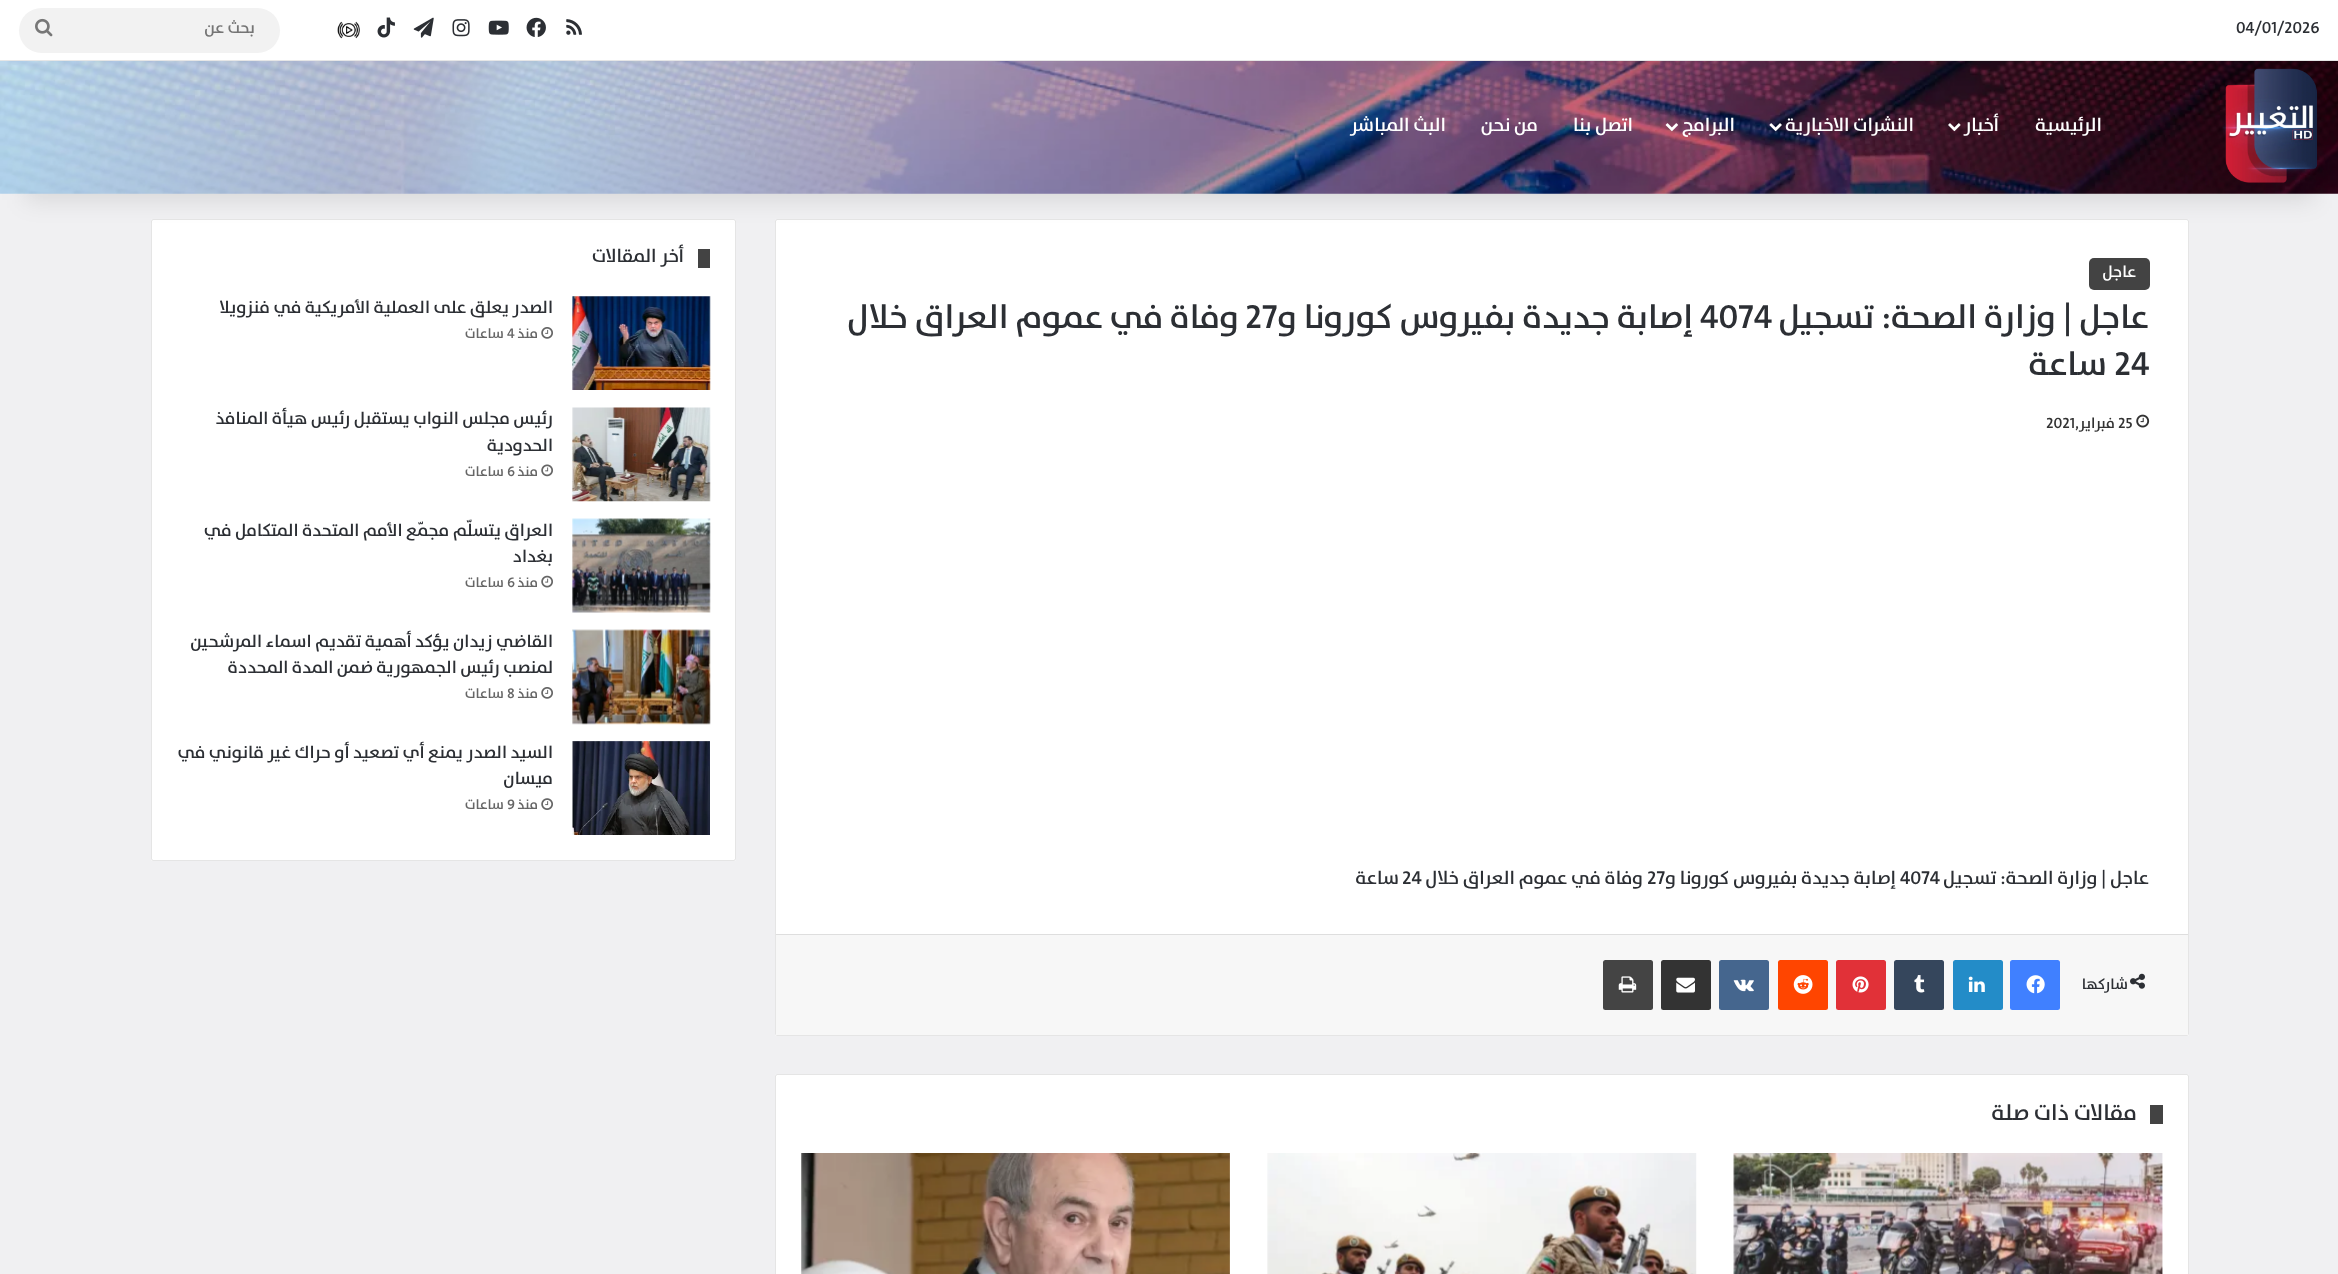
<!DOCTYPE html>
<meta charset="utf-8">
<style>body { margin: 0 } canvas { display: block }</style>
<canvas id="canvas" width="2338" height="1274"></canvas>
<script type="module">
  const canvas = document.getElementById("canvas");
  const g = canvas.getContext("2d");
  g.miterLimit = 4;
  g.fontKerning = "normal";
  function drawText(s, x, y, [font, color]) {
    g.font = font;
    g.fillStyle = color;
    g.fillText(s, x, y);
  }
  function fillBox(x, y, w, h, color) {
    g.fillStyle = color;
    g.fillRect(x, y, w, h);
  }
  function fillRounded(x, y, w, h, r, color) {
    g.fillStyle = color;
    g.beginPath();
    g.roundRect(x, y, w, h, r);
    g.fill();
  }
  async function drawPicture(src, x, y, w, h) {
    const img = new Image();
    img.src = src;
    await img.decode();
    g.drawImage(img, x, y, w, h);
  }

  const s1 = ["600 16.25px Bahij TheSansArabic", "#2C2F34"];
  const s2 = ["600 16.25px Bahij TheSansArabic", "#757575"];
  const s3 = ["600 18.75px Bahij TheSansArabic", "#FFFFFF"];
  const s4 = ["600 16.25px Bahij TheSansArabic", "#FFFFFF"];
  const s5 = ["600 33.75px Bahij TheSansArabic", "#2C2F34"];
  const s6 = ["600 15px Bahij TheSansArabic", "#333333"];
  const s7 = ["600 18.75px Bahij TheSansArabic", "#2C2F34"];
  const s8 = ["600 15px Bahij TheSansArabic", "#2C2F34"];
  const s9 = ["600 22.5px Bahij TheSansArabic", "#2C2F34"];
  const s10 = ["600 17.5px Bahij TheSansArabic", "#2C2F34"];
  const s11 = ["600 14px Bahij TheSansArabic", "#666666"];

  fillBox(0, 0, 2338, 1274, "#F0F0F2");
  fillRounded(775, 219, 1414, 817, 2.5, "#FFFFFF");
  g.beginPath();
  g.roundRect(775.5, 219.5, 1413, 816, 2);
  g.strokeStyle = "rgba(0, 0, 0, 0.1)";
  g.stroke();
  fillRounded(151, 219, 585, 642, 2.5, "#FFFFFF");
  g.beginPath();
  g.roundRect(151.5, 219.5, 584, 641, 2);
  g.stroke();
  g.fillStyle = "rgba(0, 0, 0, 0.1)";
  g.filter = "blur(12.5px)";
  g.beginPath();
  g.rect(25, 56, 2289, 144);
  g.fill();
  g.filter = "none";
  fillBox(0, 0, 2338, 60, "#FFFFFF");
  fillBox(0, 60, 2338, 1, "#E6E6E6");
  drawText("04/01/2026", 2236, 33, s1);
  await drawPicture("pic1.png", 566, 19, 16, 16);
  await drawPicture("pic2.png", 526, 17, 20, 20);
  await drawPicture("pic3.png", 488, 20, 21, 15);
  await drawPicture("pic4.png", 452, 19, 18, 18);
  await drawPicture("pic5.png", 413, 17, 21, 21);
  await drawPicture("pic6.png", 377, 17, 18, 21);
  await drawPicture("pic7.png", 337, 21, 23, 18);
  fillRounded(19, 8, 261, 45, 22.5, "#F2F2F2");
  g.direction = "rtl";
  drawText("بحث عن", 255, 33, s2);
  await drawPicture("pic8.png", 35, 18, 18, 19);
  await drawPicture("pic9.png", 0, 61, 2338, 133);
  await drawPicture("pic10.png", 2222, 68, 95, 115);
  drawText("الرئيسية", 2102, 131, s3);
  drawText("أخبار", 1999, 131, s3);
  await drawPicture("pic11.png", 1948, 123, 13, 9);
  drawText("النشرات الاخبارية", 1914, 131, s3);
  await drawPicture("pic12.png", 1769, 123, 13, 9);
  drawText("البرامج", 1735, 131, s3);
  await drawPicture("pic13.png", 1665, 123, 13, 9);
  drawText("اتصل بنا", 1633, 131, s3);
  drawText("من نحن", 1538, 131, s3);
  drawText("البث المباشر", 1446, 131, s3);
  fillRounded(2089, 258, 61, 32, 5, "#434343");
  drawText("عاجل", 2136, 277, s4);
  drawText("عاجل | وزارة الصحة: تسجيل", 2149, 328, s5);
  g.direction = "ltr";
  drawText("4074", 1700, 328, s5);
  g.direction = "rtl";
  drawText("إصابة جديدة بفيروس كورونا و", 1693, 328, s5);
  g.direction = "ltr";
  drawText("27", 1245, 328, s5);
  g.direction = "rtl";
  drawText("وفاة في عموم العراق خلال", 1239, 328, s5);
  g.direction = "ltr";
  drawText("24", 2114, 375, s5);
  g.direction = "rtl";
  drawText("ساعة", 2107, 375, s5);
  await drawPicture("pic14.png", 2136, 414, 14, 14);
  g.direction = "ltr";
  drawText("25", 2118, 428, s6);
  g.direction = "rtl";
  drawText("فبراير,", 2115, 428, s6);
  g.direction = "ltr";
  drawText("2021", 2046, 428, s6);
  g.direction = "rtl";
  drawText("عاجل | وزارة الصحة: تسجيل", 2149, 884, s7);
  g.direction = "ltr";
  drawText("4074", 1900, 884, s7);
  g.direction = "rtl";
  drawText("إصابة جديدة بفيروس كورونا و", 1896, 884, s7);
  g.direction = "ltr";
  drawText("27", 1647, 884, s7);
  g.direction = "rtl";
  drawText("وفاة في عموم العراق خلال", 1643, 884, s7);
  g.direction = "ltr";
  drawText("24", 1402, 884, s7);
  g.direction = "rtl";
  drawText("ساعة", 1399, 884, s7);
  fillBox(776, 935, 1412, 100, "#F7F7F7");
  fillBox(776, 934, 1412, 1, "#DEDEDE");
  await drawPicture("pic15.png", 2130, 973, 15, 16);
  drawText("شاركها", 2128, 989, s8);
  fillRounded(2010, 960, 50, 50, 2.5, "#4080FF");
  await drawPicture("pic16.png", 2026, 975, 19, 19);
  fillRounded(1953, 960, 50, 50, 2.5, "#238CC8");
  await drawPicture("pic17.png", 1968, 976, 17, 16);
  fillRounded(1894, 960, 50, 50, 2.5, "#35465C");
  await drawPicture("pic18.png", 1914, 975, 11, 18);
  fillRounded(1836, 960, 50, 50, 2.5, "#E13138");
  await drawPicture("pic19.png", 1852, 976, 17, 17);
  fillRounded(1778, 960, 50, 50, 2.5, "#FF4500");
  await drawPicture("pic20.png", 1793, 975, 20, 19);
  fillRounded(1719, 960, 50, 50, 2.5, "#45668E");
  await drawPicture("pic21.png", 1733, 979, 21, 13);
  fillRounded(1661, 960, 50, 50, 2.5, "#333333");
  await drawPicture("pic22.png", 1676, 977, 19, 16);
  fillRounded(1603, 960, 50, 50, 2.5, "#444444");
  await drawPicture("pic23.png", 1618, 976, 19, 17);
  fillRounded(775, 1074, 1414, 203, 2.5, "#FFFFFF");
  g.beginPath();
  g.roundRect(775.5, 1074.5, 1413, 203, 2);
  g.stroke();
  fillBox(2150, 1105, 13, 19, "#434343");
  drawText("مقالات ذات صلة", 2137, 1120, s9);
  await drawPicture("pic24.png", 1733, 1153, 430, 121);
  await drawPicture("pic25.png", 1267, 1153, 430, 121);
  await drawPicture("pic26.png", 801, 1153, 429, 121);
  fillBox(698, 249, 12, 19, "#434343");
  drawText("أخر المقالات", 684, 262, s7);
  await drawPicture("pic27.png", 572, 296, 139, 94);
  drawText("الصدر يعلق على العملية الأمريكية في فنزويلا", 553, 313, s10);
  await drawPicture("pic28.png", 541, 327, 12, 12);
  drawText("منذ", 538, 338, s11);
  g.direction = "ltr";
  drawText("4", 507, 338, s11);
  g.direction = "rtl";
  drawText("ساعات", 504, 338, s11);
  await drawPicture("pic29.png", 572, 407, 139, 95);
  drawText("رئيس مجلس النواب يستقبل رئيس هيأة المنافذ", 553, 424, s10);
  drawText("الحدودية", 553, 451, s10);
  await drawPicture("pic30.png", 541, 464, 12, 13);
  drawText("منذ", 538, 476, s11);
  g.direction = "ltr";
  drawText("6", 507, 476, s11);
  g.direction = "rtl";
  drawText("ساعات", 504, 476, s11);
  await drawPicture("pic31.png", 572, 518, 139, 95);
  drawText("العراق يتسلّم مجمّع الأمم المتحدة المتكامل في", 553, 536, s10);
  drawText("بغداد", 553, 562, s10);
  await drawPicture("pic32.png", 541, 575, 12, 13);
  drawText("منذ", 538, 587, s11);
  g.direction = "ltr";
  drawText("6", 507, 587, s11);
  g.direction = "rtl";
  drawText("ساعات", 504, 587, s11);
  await drawPicture("pic33.png", 572, 629, 139, 96);
  drawText("القاضي زيدان يؤكد أهمية تقديم اسماء المرشحين", 553, 647, s10);
  drawText("لمنصب رئيس الجمهورية ضمن المدة المحددة", 553, 673, s10);
  await drawPicture("pic28.png", 541, 687, 12, 12);
  drawText("منذ", 538, 698, s11);
  g.direction = "ltr";
  drawText("8", 507, 698, s11);
  g.direction = "rtl";
  drawText("ساعات", 504, 698, s11);
  await drawPicture("pic34.png", 572, 741, 138, 94);
  drawText("السيد الصدر يمنع أي تصعيد أو حراك غير قانوني في", 553, 758, s10);
  drawText("ميسان", 553, 784, s10);
  await drawPicture("pic35.png", 541, 798, 12, 12);
  drawText("منذ", 538, 809, s11);
  g.direction = "ltr";
  drawText("9", 507, 809, s11);
  g.direction = "rtl";
  drawText("ساعات", 504, 809, s11);
</script>
